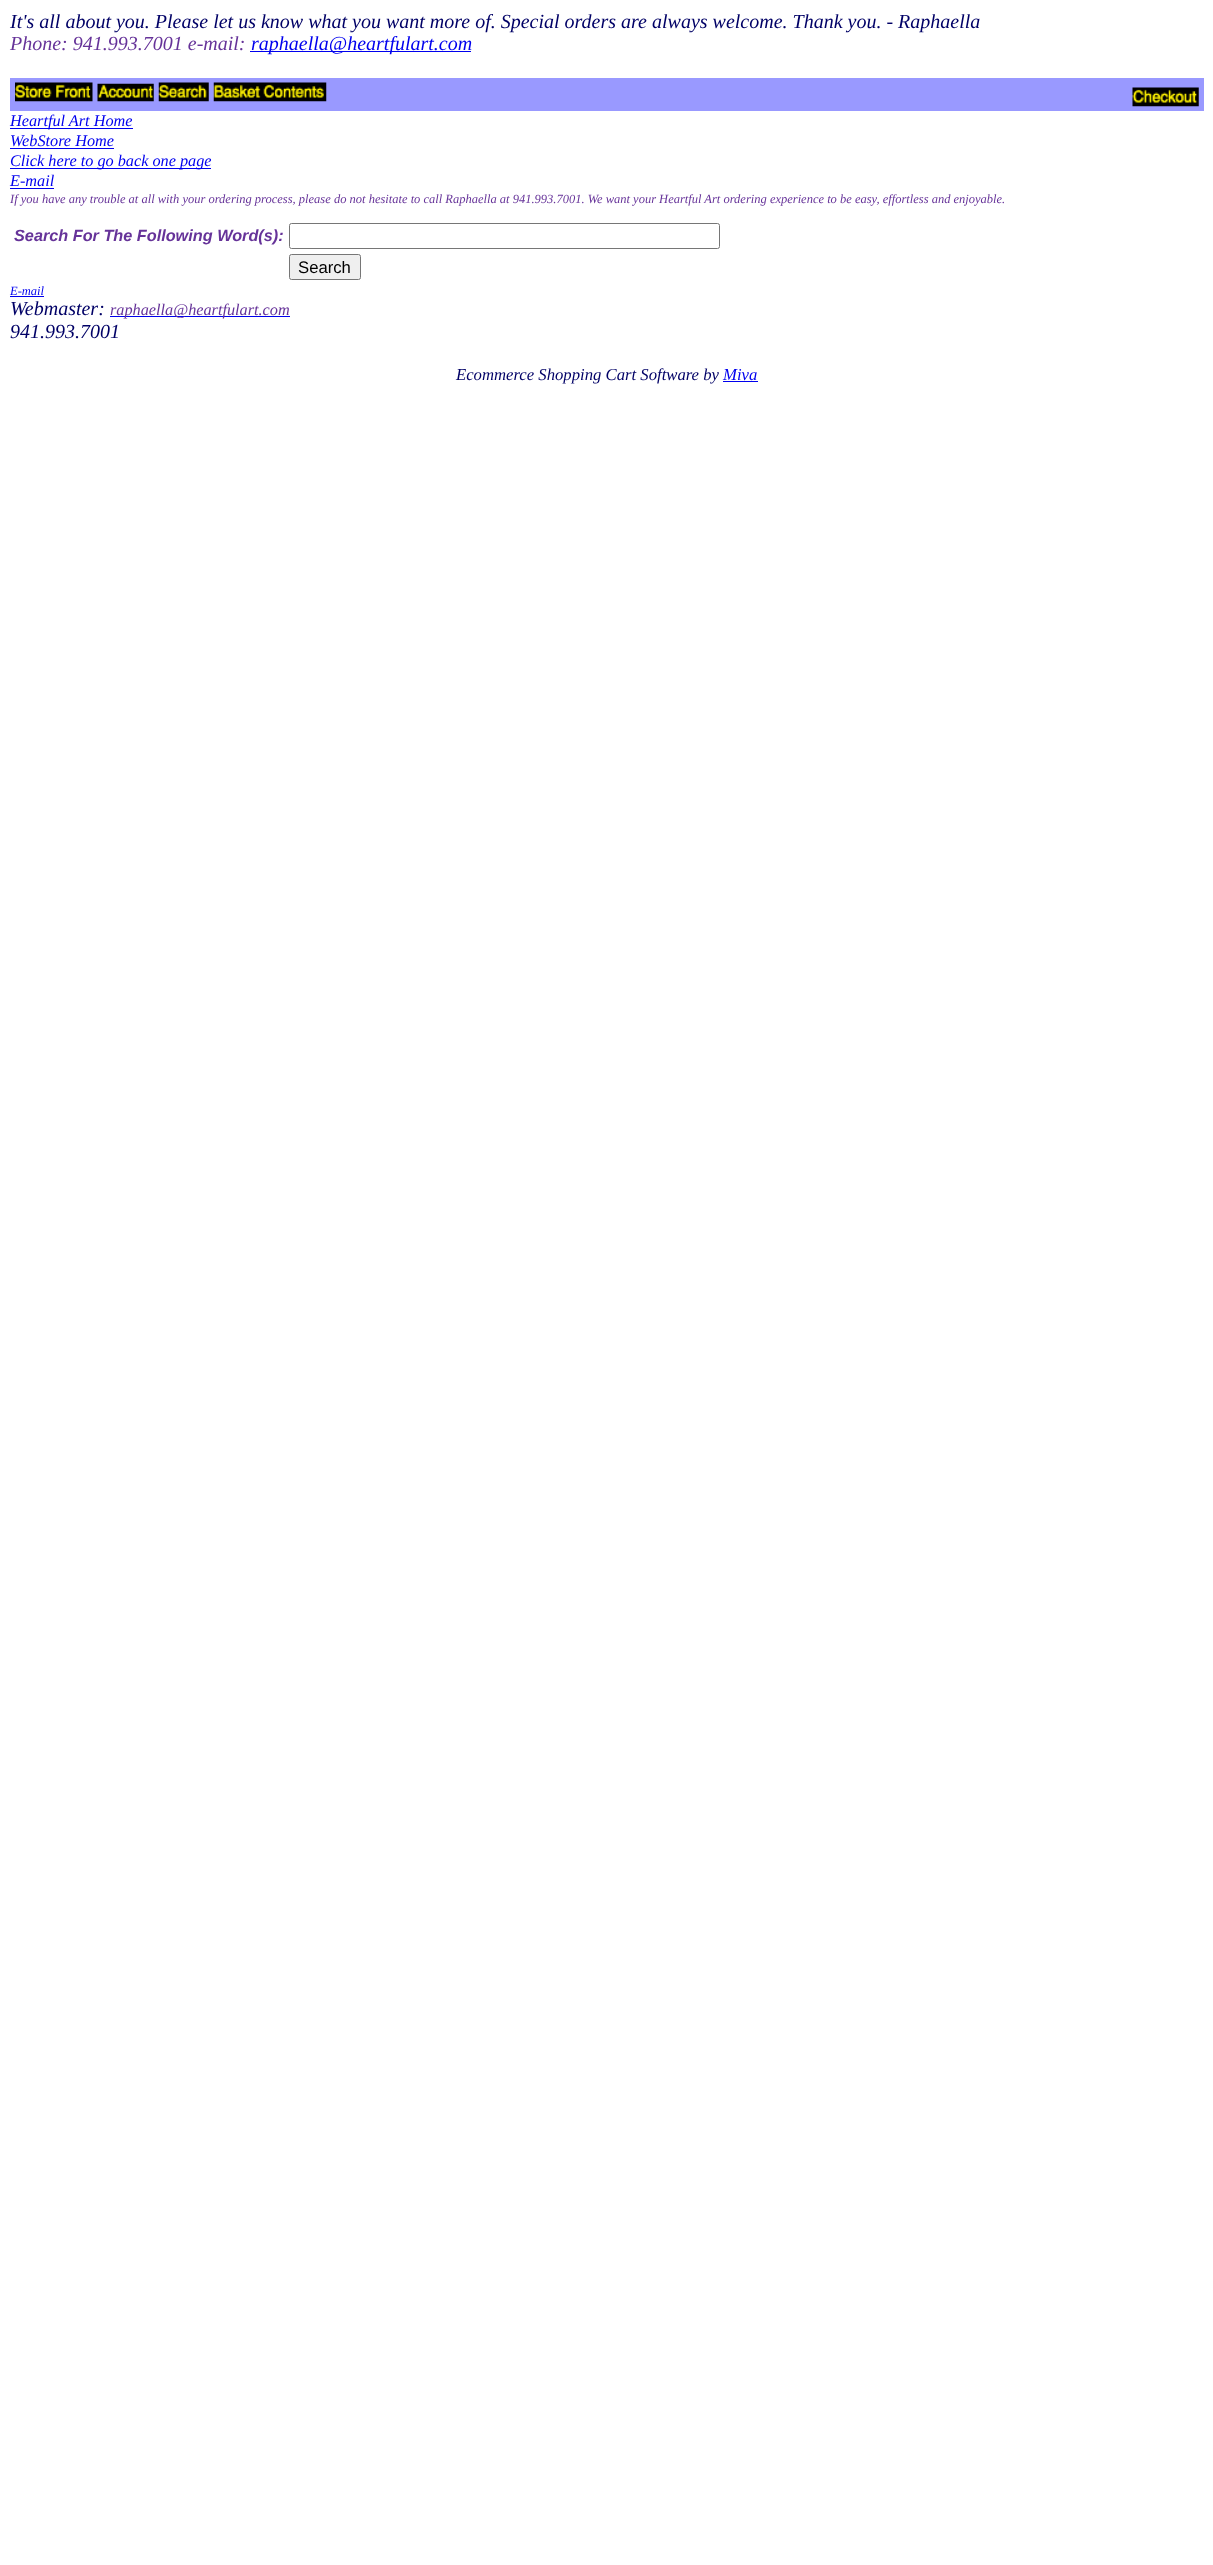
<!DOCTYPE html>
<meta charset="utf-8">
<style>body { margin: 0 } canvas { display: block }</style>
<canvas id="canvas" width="1213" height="2565"></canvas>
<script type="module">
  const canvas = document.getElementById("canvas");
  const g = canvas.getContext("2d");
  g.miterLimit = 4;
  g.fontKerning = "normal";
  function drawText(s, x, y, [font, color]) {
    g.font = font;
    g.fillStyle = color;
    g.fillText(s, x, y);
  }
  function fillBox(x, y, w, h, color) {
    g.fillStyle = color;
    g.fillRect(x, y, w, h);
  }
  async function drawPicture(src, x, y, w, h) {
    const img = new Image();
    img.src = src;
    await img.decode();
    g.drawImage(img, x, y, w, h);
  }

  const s1 = ["italic 20px Liberation Serif", "#000066"];
  const s2 = ["italic 20px Liberation Serif", "#663399"];
  const s3 = ["italic 20px Liberation Serif", "#0000EE"];
  const s4 = ["italic 16.25px Liberation Serif", "#0000EE"];
  const s5 = ["italic 12.5px Liberation Serif", "#663399"];
  const s6 = ["italic bold 16.25px Liberation Sans", "#663399"];
  const s7 = ["16.7px Liberation Sans", "#000000"];
  const s8 = ["italic 12.5px Liberation Serif", "#0000EE"];
  const s9 = ["italic 16.25px Liberation Serif", "#663399"];
  const s10 = ["italic 16.7px Liberation Serif", "#000066"];
  const s11 = ["italic 16.7px Liberation Serif", "#0000EE"];

  fillBox(0, 0, 1213, 2565, "#FFFFFF");
  drawText("It's all about you. Please let us know what you want more of. Special orders are always welcome. Thank you. - Raphaella", 10, 28, s1);
  drawText("Phone: 941.993.7001 e-mail:", 10, 50, s2);
  fillBox(250, 51, 221, 1, "#0000EE");
  drawText("raphaella@heartfulart.com", 251, 50, s3);
  fillBox(10, 78, 1194, 33, "#9999FF");
  await drawPicture("pic1.png", 15, 82, 78, 20);
  await drawPicture("pic2.png", 97, 83, 57, 19);
  await drawPicture("pic3.png", 158, 82, 51, 20);
  await drawPicture("pic4.png", 213, 82, 114, 20);
  await drawPicture("pic5.png", 1132, 87, 67, 20);
  fillBox(10, 128, 123, 1, "#0000EE");
  drawText("Heartful Art Home", 10, 126, s4);
  drawText("WebStore Home", 10, 146, s4);
  fillBox(10, 148, 104, 1, "#0000EE");
  fillBox(10, 168, 201, 1, "#0000EE");
  drawText("Click here to go back one page", 10, 166, s4);
  drawText("E-mail", 10, 186, s4);
  fillBox(10, 188, 44, 1, "#0000EE");
  drawText("If you have any trouble at all with your ordering process, please do not hesitate to call Raphaella at 941.993.7001. We want your Heartful Art ordering experience to be easy, effortless and enjoyable.", 10, 203, s5);
  drawText("Search For The Following Word(s):", 14, 241, s6);
  g.beginPath();
  g.roundRect(289.5, 223.5, 430, 25, 2);
  g.strokeStyle = "#767676";
  g.stroke();
  g.fillStyle = "#EFEFEF";
  g.beginPath();
  g.roundRect(289.5, 254.5, 71, 25, 2);
  g.fill();
  g.stroke();
  drawText("Search", 298, 273, s7);
  drawText("E-mail", 10, 295, s8);
  fillBox(10, 296, 34, 1, "#0000EE");
  drawText("Webmaster:", 10, 315, s1);
  fillBox(110, 316, 180, 1, "#0000EE");
  drawText("raphaella@heartfulart.com", 110, 315, s9);
  drawText("941.993.7001", 10, 338, s1);
  drawText("Ecommerce Shopping Cart Software by", 456, 380, s10);
  drawText("Miva", 723, 380, s11);
  fillBox(723, 381, 35, 1, "#0000EE");
</script>
